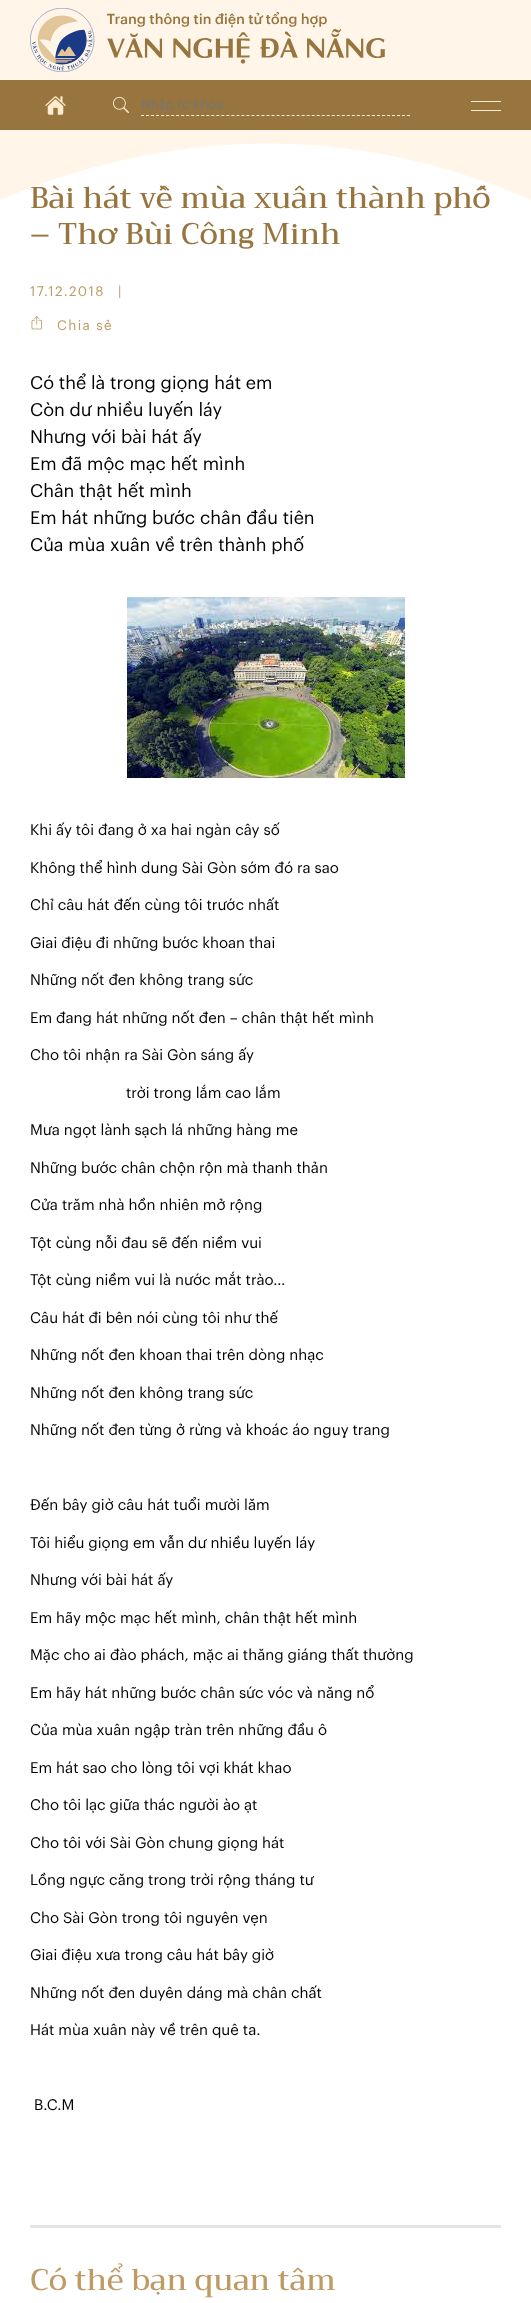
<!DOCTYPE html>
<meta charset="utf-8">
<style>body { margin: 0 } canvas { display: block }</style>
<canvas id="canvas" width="531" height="2303"></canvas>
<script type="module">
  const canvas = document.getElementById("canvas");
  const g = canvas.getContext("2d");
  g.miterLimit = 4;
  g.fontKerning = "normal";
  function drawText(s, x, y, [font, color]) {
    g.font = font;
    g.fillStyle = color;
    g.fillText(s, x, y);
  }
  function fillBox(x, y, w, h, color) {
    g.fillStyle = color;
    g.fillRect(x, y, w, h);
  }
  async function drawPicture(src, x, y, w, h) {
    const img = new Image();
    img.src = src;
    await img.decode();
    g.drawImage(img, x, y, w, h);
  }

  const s1 = ["13.25px Graphik", "#757575"];
  const s2 = ["500 30px Trirong", "#98753E"];
  const s3 = ["13.5px Graphik", "#BE9A65"];
  const s4 = ["18px Graphik", "#000000"];
  const s5 = ["15px Graphik", "#000000"];
  const s6 = ["500 30px Trirong", "#BE9A65"];

  fillBox(0, 0, 531, 2303, "#FFFFFF");
  await drawPicture("pic1.png", 0, 0, 531, 200);
  await drawPicture("pic2.png", 30, 8, 355, 64);
  fillBox(0, 80, 531, 50, "#98753E");
  await drawPicture("pic3.png", 45, 96, 21, 19);
  await drawPicture("pic4.png", 113, 96, 16, 17);
  g.beginPath();
  g.moveTo(141, 115.5);
  g.lineTo(410, 115.5);
  g.strokeStyle = "#FFEBCE";
  g.setLineDash([3, 2.02]);
  g.stroke();
  g.save();
  g.beginPath();
  g.rect(141, 98, 269, 13);
  g.clip();
  drawText("Nhập từ khóa", 141, 109, s1);
  g.restore();
  fillBox(471, 101, 30, 1, "#FFEBCE");
  fillBox(471, 110, 30, 1, "#FFEBCE");
  drawText("Bài hát về mùa xuân thành phố", 30, 208, s2);
  drawText("– Thơ Bùi Công Minh", 30, 244, s2);
  g.letterSpacing = "1.4px";
  drawText("17.12.2018", 30, 296, s3);
  drawText("|", 118, 296, s3);
  await drawPicture("pic5.png", 31, 316, 11, 14);
  drawText("Chia sẻ", 57, 330, s3);
  g.letterSpacing = "0px";
  drawText("Có thể là trong giọng hát em", 30, 389, s4);
  drawText("Còn dư nhiều luyến láy", 30, 416, s4);
  drawText("Nhưng với bài hát ấy", 30, 443, s4);
  drawText("Em đã mộc mạc hết mình", 30, 470, s4);
  drawText("Chân thật hết mình", 30, 497, s4);
  drawText("Em hát những bước chân đầu tiên", 30, 524, s4);
  drawText("Của mùa xuân về trên thành phố", 30, 551, s4);
  await drawPicture("pic6.png", 127, 597, 278, 181);
  drawText("Khi ấy tôi đang ở xa hai ngàn cây số", 30, 835, s5);
  drawText("Không thể hình dung Sài Gòn sớm đó ra sao", 30, 873, s5);
  drawText("Chỉ câu hát đến cùng tôi trước nhất", 30, 910, s5);
  drawText("Giai điệu đi những bước khoan thai", 30, 948, s5);
  drawText("Những nốt đen không trang sức", 30, 985, s5);
  drawText("Em đang hát những nốt đen – chân thật hết mình", 30, 1023, s5);
  drawText("Cho tôi nhận ra Sài Gòn sáng ấy", 30, 1060, s5);
  drawText("trời trong lắm cao lắm", 126, 1098, s5);
  drawText("Mưa ngọt lành sạch lá những hàng me", 30, 1135, s5);
  drawText("Những bước chân chộn rộn mà thanh thản", 30, 1173, s5);
  drawText("Cửa trăm nhà hồn nhiên mở rộng", 30, 1210, s5);
  drawText("Tột cùng nỗi đau sẽ đến niềm vui", 30, 1248, s5);
  drawText("Tột cùng niềm vui là nước mắt trào…", 30, 1285, s5);
  drawText("Câu hát đi bên nói cùng tôi như thế", 30, 1323, s5);
  drawText("Những nốt đen khoan thai trên dòng nhạc", 30, 1360, s5);
  drawText("Những nốt đen không trang sức", 30, 1398, s5);
  drawText("Những nốt đen từng ở rừng và khoác áo nguỵ trang", 30, 1435, s5);
  drawText("Đến bây giờ câu hát tuổi mười lăm", 30, 1510, s5);
  drawText("Tôi hiểu giọng em vẫn dư nhiều luyến láy", 30, 1548, s5);
  drawText("Nhưng với bài hát ấy", 30, 1585, s5);
  drawText("Em hãy mộc mạc hết mình, chân thật hết mình", 30, 1623, s5);
  drawText("Mặc cho ai đào phách, mặc ai thăng giáng thất thường", 30, 1660, s5);
  drawText("Em hãy hát những bước chân sức vóc và năng nổ", 30, 1698, s5);
  drawText("Của mùa xuân ngập tràn trên những đầu ô", 30, 1735, s5);
  drawText("Em hát sao cho lòng tôi vợi khát khao", 30, 1773, s5);
  drawText("Cho tôi lạc giữa thác người ào ạt", 30, 1810, s5);
  drawText("Cho tôi với Sài Gòn chung giọng hát", 30, 1848, s5);
  drawText("Lồng ngực căng trong trời rộng tháng tư", 30, 1885, s5);
  drawText("Cho Sài Gòn trong tôi nguyên vẹn", 30, 1923, s5);
  drawText("Giai điệu xưa trong câu hát bây giờ", 30, 1960, s5);
  drawText("Những nốt đen duyên dáng mà chân chất", 30, 1998, s5);
  drawText("Hát mùa xuân này về trên quê ta.", 30, 2035, s5);
  drawText("B.C.M", 34, 2110, s5);
  fillBox(30, 2225, 471, 3, "#E5E5E5");
  drawText("Có thể bạn quan tâm", 30, 2290, s6);
</script>
